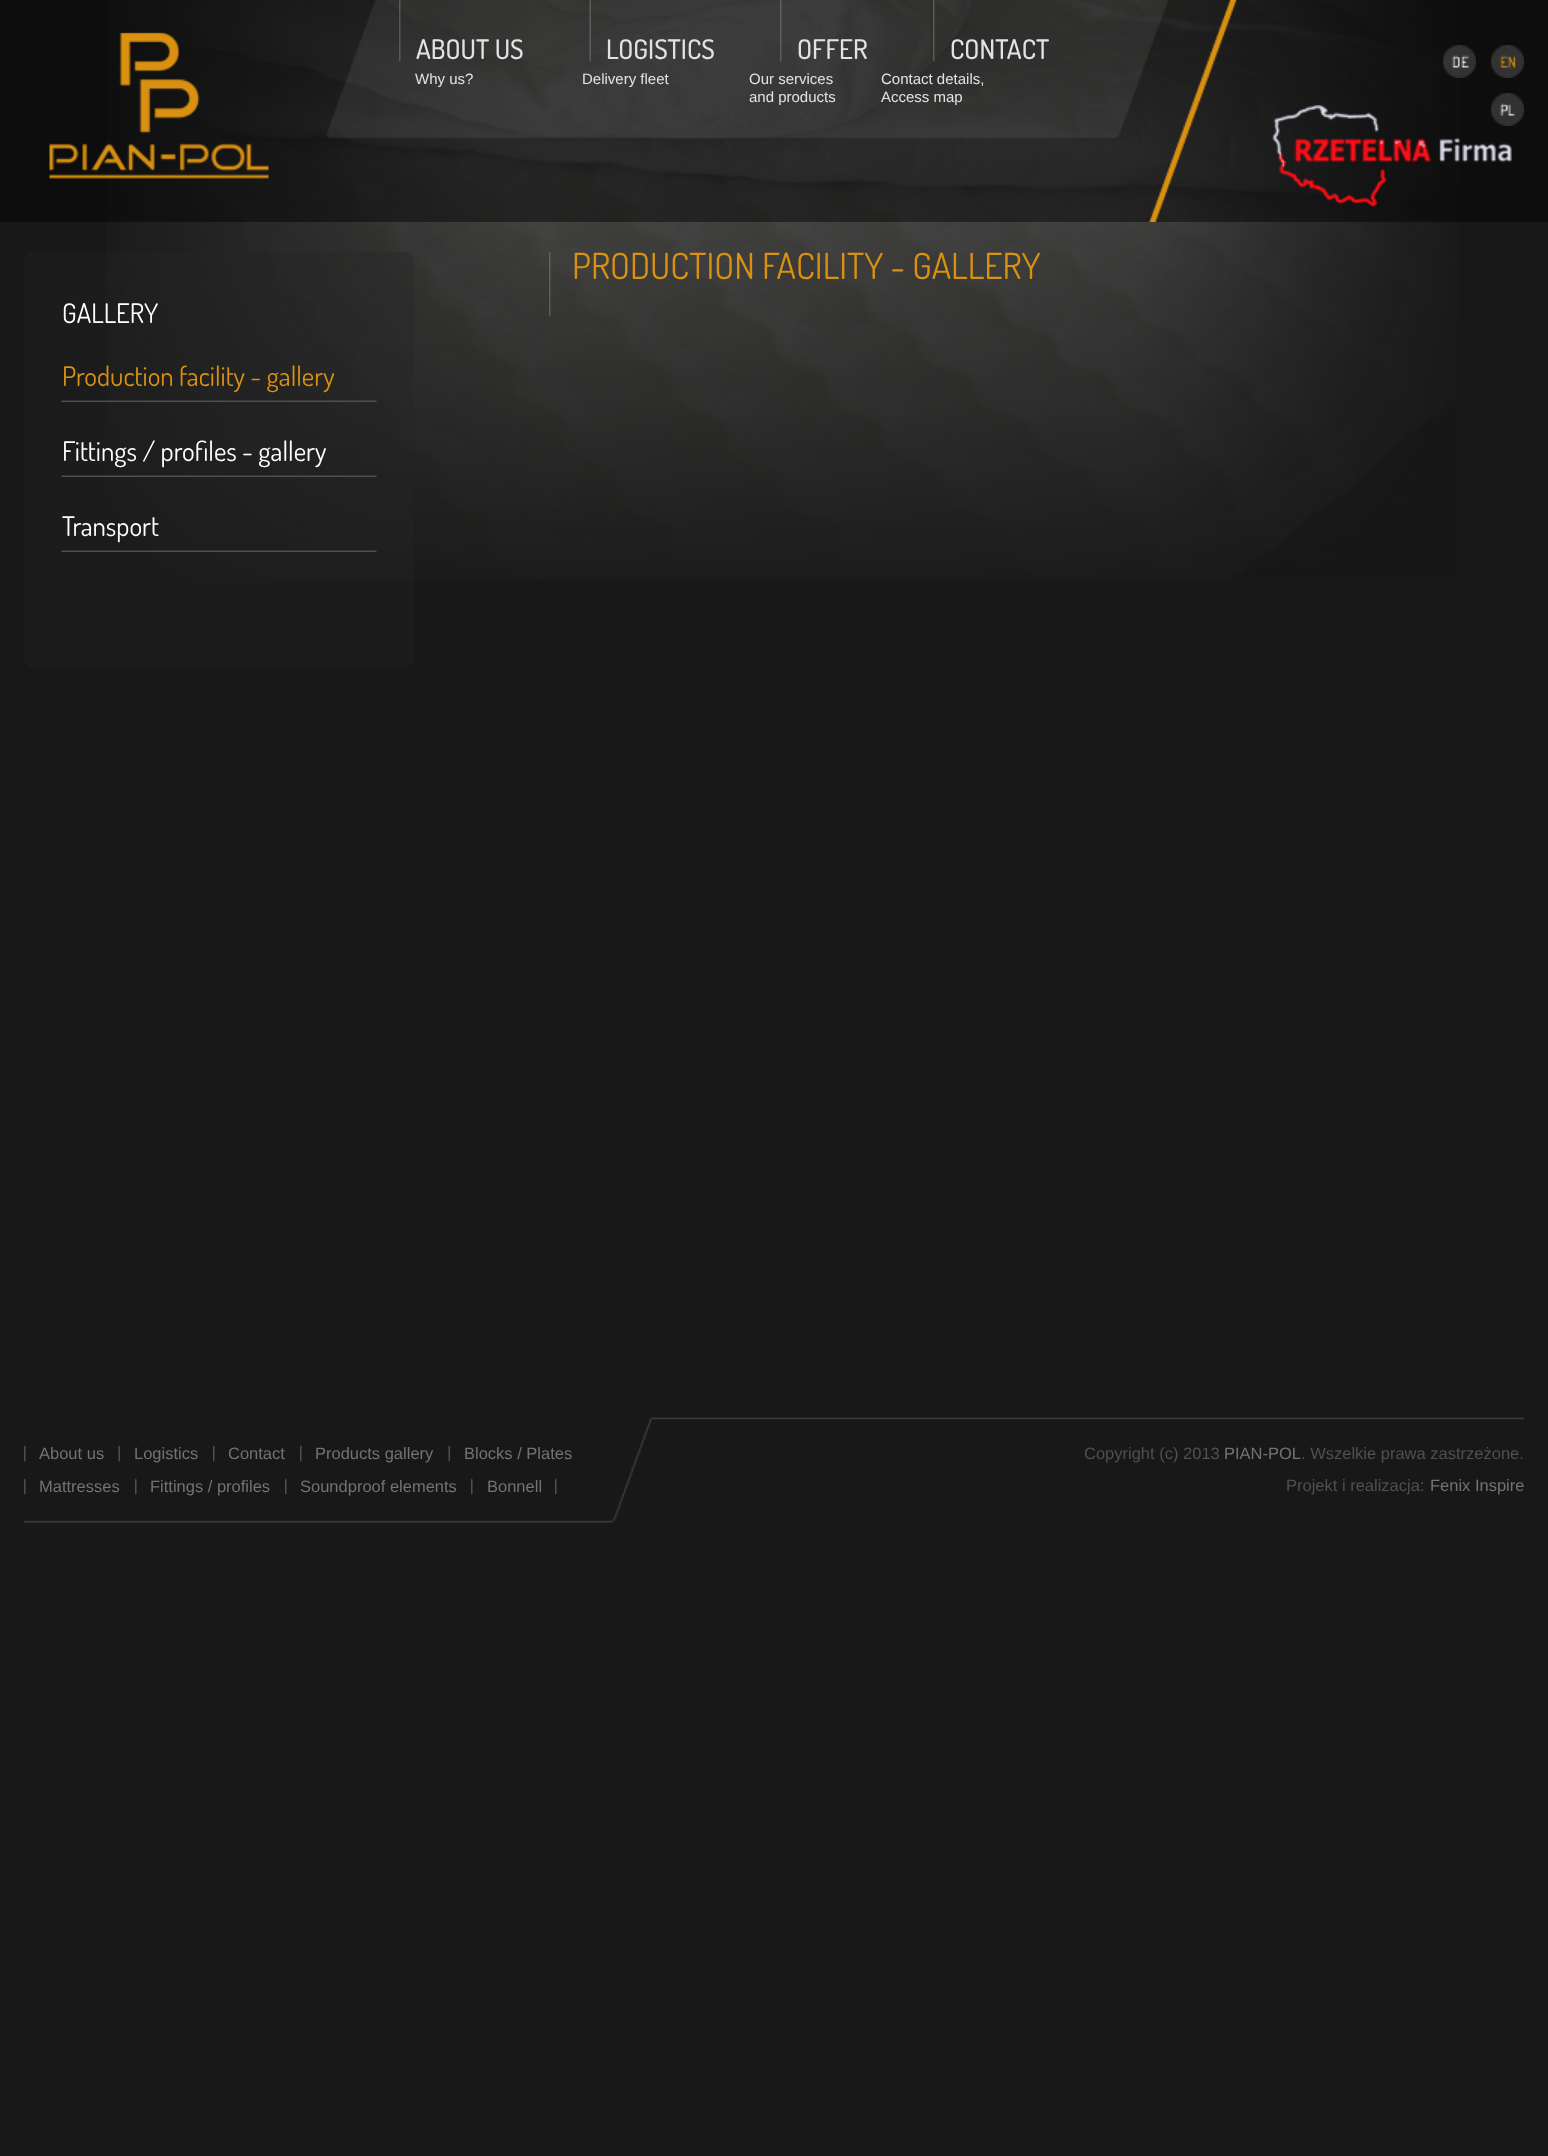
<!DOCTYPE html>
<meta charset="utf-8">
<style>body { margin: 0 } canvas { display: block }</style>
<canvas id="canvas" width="1548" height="2156"></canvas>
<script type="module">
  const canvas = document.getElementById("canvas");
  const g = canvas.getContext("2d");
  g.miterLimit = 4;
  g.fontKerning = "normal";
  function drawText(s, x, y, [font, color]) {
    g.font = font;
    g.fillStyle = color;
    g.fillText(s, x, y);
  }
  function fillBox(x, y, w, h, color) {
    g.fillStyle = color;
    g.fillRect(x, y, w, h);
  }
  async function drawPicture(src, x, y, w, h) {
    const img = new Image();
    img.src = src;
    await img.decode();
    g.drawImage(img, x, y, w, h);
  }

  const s1 = ["500 27px Dosis", "#E1E3E3"];
  const s2 = ["15px Liberation Sans", "#E1E3E3"];
  const s3 = ["36px Dosis", "#D99111"];
  const s4 = ["27px Dosis", "#FFFFFF"];
  const s5 = ["27px Dosis", "#D99111"];
  const s6 = ["16.5px Liberation Sans", "#737373"];
  const s7 = ["16.5px Liberation Sans", "#505050"];

  fillBox(0, 0, 1548, 2156, "#181818");
  await drawPicture("pic1.png", 107, 0, 1352, 580);
  fillBox(0, 0, 1548, 222, "rgba(0, 0, 0, 0.45)");
  await drawPicture("pic2.png", 326, 0, 911, 222);
  await drawPicture("pic3.png", 49, 32, 220, 147);
  await drawPicture("pic4.png", 399, 0, 2, 62);
  drawText("ABOUT US", 416, 59, s1);
  await drawPicture("pic5.png", 589, 0, 2, 62);
  drawText("LOGISTICS", 606, 59, s1);
  await drawPicture("pic6.png", 780, 0, 2, 62);
  drawText("OFFER", 797, 59, s1);
  await drawPicture("pic7.png", 933, 0, 2, 62);
  drawText("CONTACT", 950, 59, s1);
  drawText("Why us?", 415, 84, s2);
  drawText("Delivery fleet", 582, 84, s2);
  drawText("Our services", 749, 84, s2);
  drawText("and products", 749, 102, s2);
  drawText("Contact details,", 881, 84, s2);
  drawText("Access map", 881, 102, s2);
  await drawPicture("pic8.png", 1443, 45, 33, 33);
  await drawPicture("pic9.png", 1491, 45, 33, 33);
  await drawPicture("pic10.png", 1491, 93, 33, 33);
  await drawPicture("pic11.png", 1272, 105, 240, 102);
  await drawPicture("pic12.png", 549, 252, 2, 65);
  drawText("PRODUCTION FACILITY - GALLERY", 572, 279, s3);
  await drawPicture("pic13.png", 24, 252, 390, 415);
  drawText("GALLERY", 62, 323, s4);
  await drawPicture("pic14.png", 61, 400, 316, 2);
  drawText("Production facility - gallery", 62, 386, s5);
  await drawPicture("pic15.png", 61, 475, 316, 2);
  drawText("Fittings / profiles - gallery", 62, 461, s4);
  await drawPicture("pic16.png", 61, 550, 316, 2);
  drawText("Transport", 62, 536, s4);
  await drawPicture("pic17.png", 24, 1417, 1500, 106);
  await drawPicture("pic18.png", 24, 1445, 2, 17);
  drawText("About us", 39, 1459, s6);
  await drawPicture("pic19.png", 118, 1445, 2, 17);
  drawText("Logistics", 134, 1459, s6);
  await drawPicture("pic18.png", 213, 1445, 2, 17);
  drawText("Contact", 228, 1459, s6);
  await drawPicture("pic18.png", 300, 1445, 2, 17);
  drawText("Products gallery", 315, 1459, s6);
  await drawPicture("pic19.png", 448, 1445, 2, 17);
  drawText("Blocks / Plates", 464, 1459, s6);
  await drawPicture("pic18.png", 24, 1478, 2, 17);
  drawText("Mattresses", 39, 1492, s6);
  await drawPicture("pic18.png", 135, 1478, 2, 17);
  drawText("Fittings / profiles", 150, 1492, s6);
  await drawPicture("pic18.png", 285, 1478, 2, 17);
  drawText("Soundproof elements", 300, 1492, s6);
  await drawPicture("pic18.png", 555, 1478, 2, 17);
  await drawPicture("pic18.png", 471, 1478, 2, 17);
  drawText("Bonnell", 487, 1492, s6);
  drawText("Copyright (c) 2013", 1084, 1459, s7);
  drawText("PIAN-POL", 1224, 1459, s6);
  drawText(". Wszelkie prawa zastrzeżone.", 1301, 1459, s7);
  drawText("Projekt i realizacja:", 1286, 1491, s7);
  drawText("Fenix Inspire", 1430, 1491, s6);
</script>
